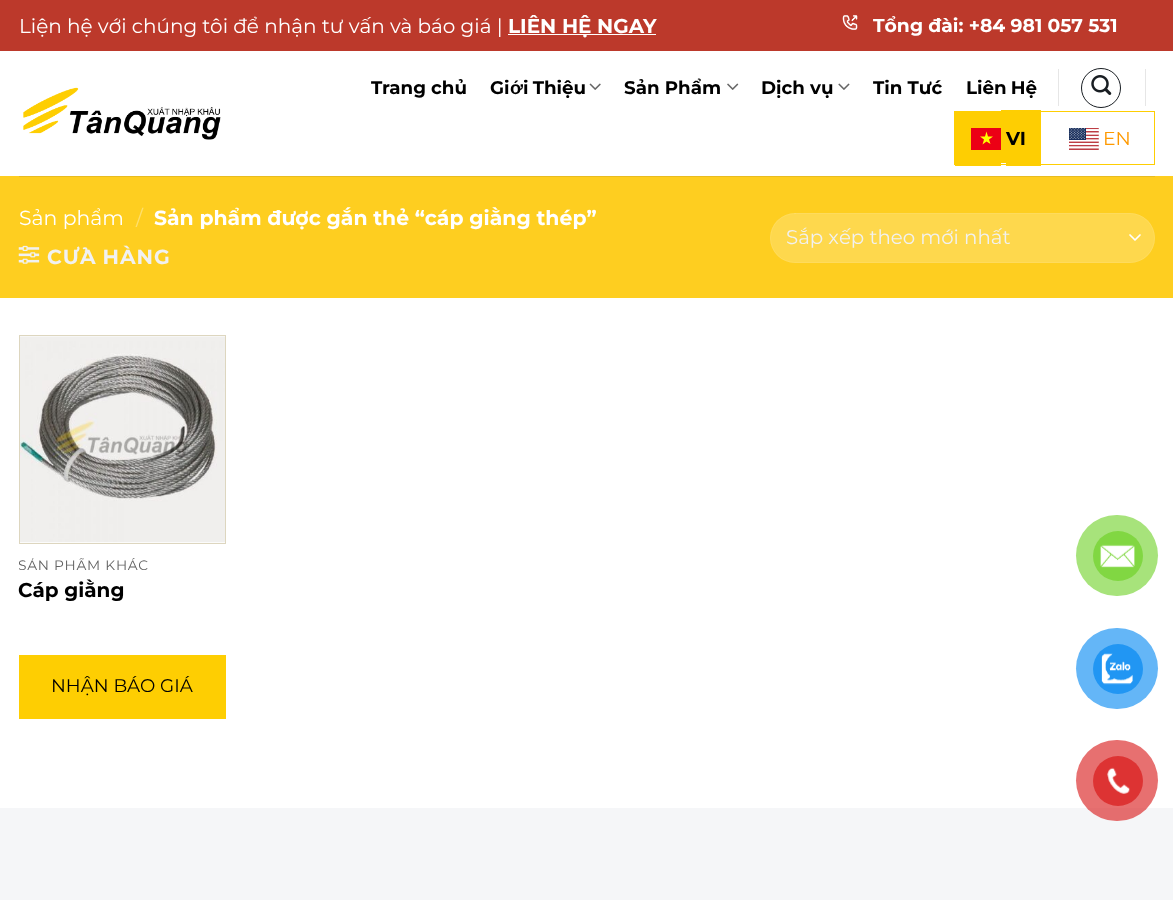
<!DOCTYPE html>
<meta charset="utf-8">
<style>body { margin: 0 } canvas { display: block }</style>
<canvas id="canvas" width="1173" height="900"></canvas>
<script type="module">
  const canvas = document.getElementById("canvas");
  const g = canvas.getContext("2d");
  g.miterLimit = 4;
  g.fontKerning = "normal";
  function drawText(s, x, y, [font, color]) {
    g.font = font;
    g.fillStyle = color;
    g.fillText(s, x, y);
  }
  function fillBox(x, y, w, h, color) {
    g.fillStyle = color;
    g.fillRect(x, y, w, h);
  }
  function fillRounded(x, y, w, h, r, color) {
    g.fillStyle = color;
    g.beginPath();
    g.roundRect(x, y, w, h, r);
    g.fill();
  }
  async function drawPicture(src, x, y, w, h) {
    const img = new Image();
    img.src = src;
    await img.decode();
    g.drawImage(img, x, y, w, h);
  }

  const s1 = ["20px Montserrat", "#FFFFFF"];
  const s2 = ["bold 20px Montserrat", "#FFFFFF"];
  const s3 = ["bold 18.75px Montserrat", "#FFFFFF"];
  const s4 = ["bold 18.25px Montserrat", "#000000"];
  const s5 = ["bold 18.25px Liberation Sans", "#000000"];
  const s6 = ["bold 18.75px Montserrat", "#000000"];
  const s7 = ["18.75px Montserrat", "#FE9900"];
  const s8 = ["20.4px Montserrat", "#FFFFFF"];
  const s9 = ["20.4px Montserrat", "#FEDF6E"];
  const s10 = ["bold 20.4px Montserrat", "#FFFFFF"];
  const s11 = ["bold 20.4px Montserrat", "#F1F1F1"];
  const s12 = ["19.75px Montserrat", "#F1F1F1"];
  const s13 = ["13.75px Montserrat", "#626262"];
  const s14 = ["bold 20px Montserrat", "#000000"];
  const s15 = ["18.25px Montserrat", "#000000"];

  fillBox(0, 0, 1173, 900, "#FFFFFF");
  fillBox(0, 0, 1173, 51, "#BC392B");
  drawText("Liện hệ với chúng tôi để nhận tư vấn và báo giá |", 19, 33, s1);
  fillBox(508, 34, 148, 1, "#FFFFFF");
  drawText("LIÊN HỆ NGAY", 508, 33, s2);
  await drawPicture("pic1.png", 842, 15, 16, 15);
  drawText("Tổng đài: +84 981 057 531", 873, 32, s3);
  await drawPicture("pic2.png", 23, 87, 198, 53);
  drawText("Trang chủ", 371, 94, s4);
  drawText("Gi", 490, 94, s4);
  drawText("ớ", 510, 94, s5);
  g.wordSpacing = "-1px";
  drawText("i Thiệu", 523, 94, s4);
  await drawPicture("pic3.png", 589, 83, 12, 7);
  g.wordSpacing = "0px";
  drawText("Sản Phẩm", 624, 94, s4);
  await drawPicture("pic4.png", 727, 83, 12, 7);
  drawText("Dịch vụ", 761, 94, s4);
  await drawPicture("pic5.png", 838, 83, 12, 7);
  drawText("Tin Tức", 873, 94, s4);
  g.wordSpacing = "-1px";
  drawText("Liên Hệ", 966, 94, s4);
  fillBox(1058, 69, 1, 37, "#E6E6E6");
  g.beginPath();
  g.arc(1101, 88, 19.5, 0, Math.PI * 2);
  g.strokeStyle = "#191E23";
  g.stroke();
  await drawPicture("pic6.png", 1091, 75, 21, 20);
  fillBox(1145, 69, 1, 37, "#E6E6E6");
  g.strokeStyle = "#FECE02";
  g.strokeRect(954.5, 111.5, 200, 53);
  fillBox(1001, 110, 5, 53, "#FECE02");
  fillBox(1006, 110, 35, 56, "#FECE02");
  g.wordSpacing = "0px";
  drawText("VI", 1006, 145, s6);
  fillBox(955, 112, 46, 54, "#FECE02");
  fillBox(971, 128, 30, 22, "#EC0015");
  g.fillStyle = "#FFFF00";
  g.beginPath();
  g.moveTo(990.5, 144);
  g.lineTo(986.5, 141.5);
  g.lineTo(982.5, 144.5);
  g.lineTo(984, 139.5);
  g.lineTo(980, 136.5);
  g.lineTo(985, 136.5);
  g.lineTo(986.5, 131.5);
  g.lineTo(988, 136.5);
  g.lineTo(993, 136.5);
  g.lineTo(989, 139.5);
  g.closePath();
  g.fill("evenodd");
  await drawPicture("pic7.png", 1069, 128, 30, 22);
  drawText("EN", 1103, 145, s7);
  fillBox(0, 176, 1173, 122, "#FECE20");
  fillBox(19, 176, 1136, 1, "#E8BC20");
  drawText("Sản phẩm", 19, 225, s8);
  drawText("/", 136, 225, s9);
  drawText("Sản phẩm được gắn thẻ “cáp giằng thép”", 154, 225, s10);
  await drawPicture("pic8.png", 18, 245, 22, 19);
  g.letterSpacing = "1px";
  g.wordSpacing = "-1px";
  drawText("CỬA HÀNG", 47, 264, s11);
  fillRounded(770, 213, 385, 50, 25, "#FED84D");
  g.beginPath();
  g.moveTo(1130, 235);
  g.lineTo(1135, 240);
  g.lineTo(1140, 235);
  g.strokeStyle = "#FFFFFF";
  g.lineWidth = 1.7;
  g.lineCap = "round";
  g.lineJoin = "round";
  g.stroke();
  g.beginPath();
  g.roundRect(770.5, 213.5, 384, 49, 24.5);
  g.strokeStyle = "rgba(255, 255, 255, 0.09)";
  g.lineWidth = 1;
  g.lineJoin = "miter";
  g.stroke();
  g.letterSpacing = "0px";
  g.wordSpacing = "0px";
  drawText("Sắp xếp theo mới nhất", 786, 244, s12);
  g.strokeStyle = "#DDD6BF";
  g.strokeRect(19.5, 335.5, 206, 208);
  await drawPicture("pic9.png", 20, 336, 205, 207);
  g.save();
  g.beginPath();
  g.rect(19, 558, 207, 16);
  g.clip();
  g.letterSpacing = "0.75px";
  drawText("SẢN PHẨM KHÁC", 18, 570, s13);
  g.restore();
  drawText("Cáp giằng", 18, 597, s14);
  fillBox(19, 655, 207, 64, "#FECE02");
  drawText("NHẬN BÁO GIÁ", 51, 692, s15);
  fillBox(0, 808, 1173, 92, "#F5F6F8");
  fillRounded(1076, 515, 82, 81, 40.5, "#A7E37B");
  g.fillStyle = "#81D742";
  g.beginPath();
  g.arc(1118, 556, 25, 0, Math.PI * 2);
  g.fill();
  await drawPicture("pic10.png", 1100, 544, 35, 24);
  fillRounded(1076, 628, 82, 81, 40.5, "#64B6F7");
  g.fillStyle = "#2196F3";
  g.beginPath();
  g.arc(1118, 669, 25, 0, Math.PI * 2);
  g.fill();
  await drawPicture("pic11.png", 1101, 653, 32, 32);
  fillRounded(1076, 740, 82, 81, 40.5, "rgba(221, 51, 51, 0.7)");
  g.fillStyle = "#DD3333";
  g.beginPath();
  g.arc(1118, 781, 25, 0, Math.PI * 2);
  g.fill();
  await drawPicture("pic12.png", 1107, 767, 23, 27);
</script>
